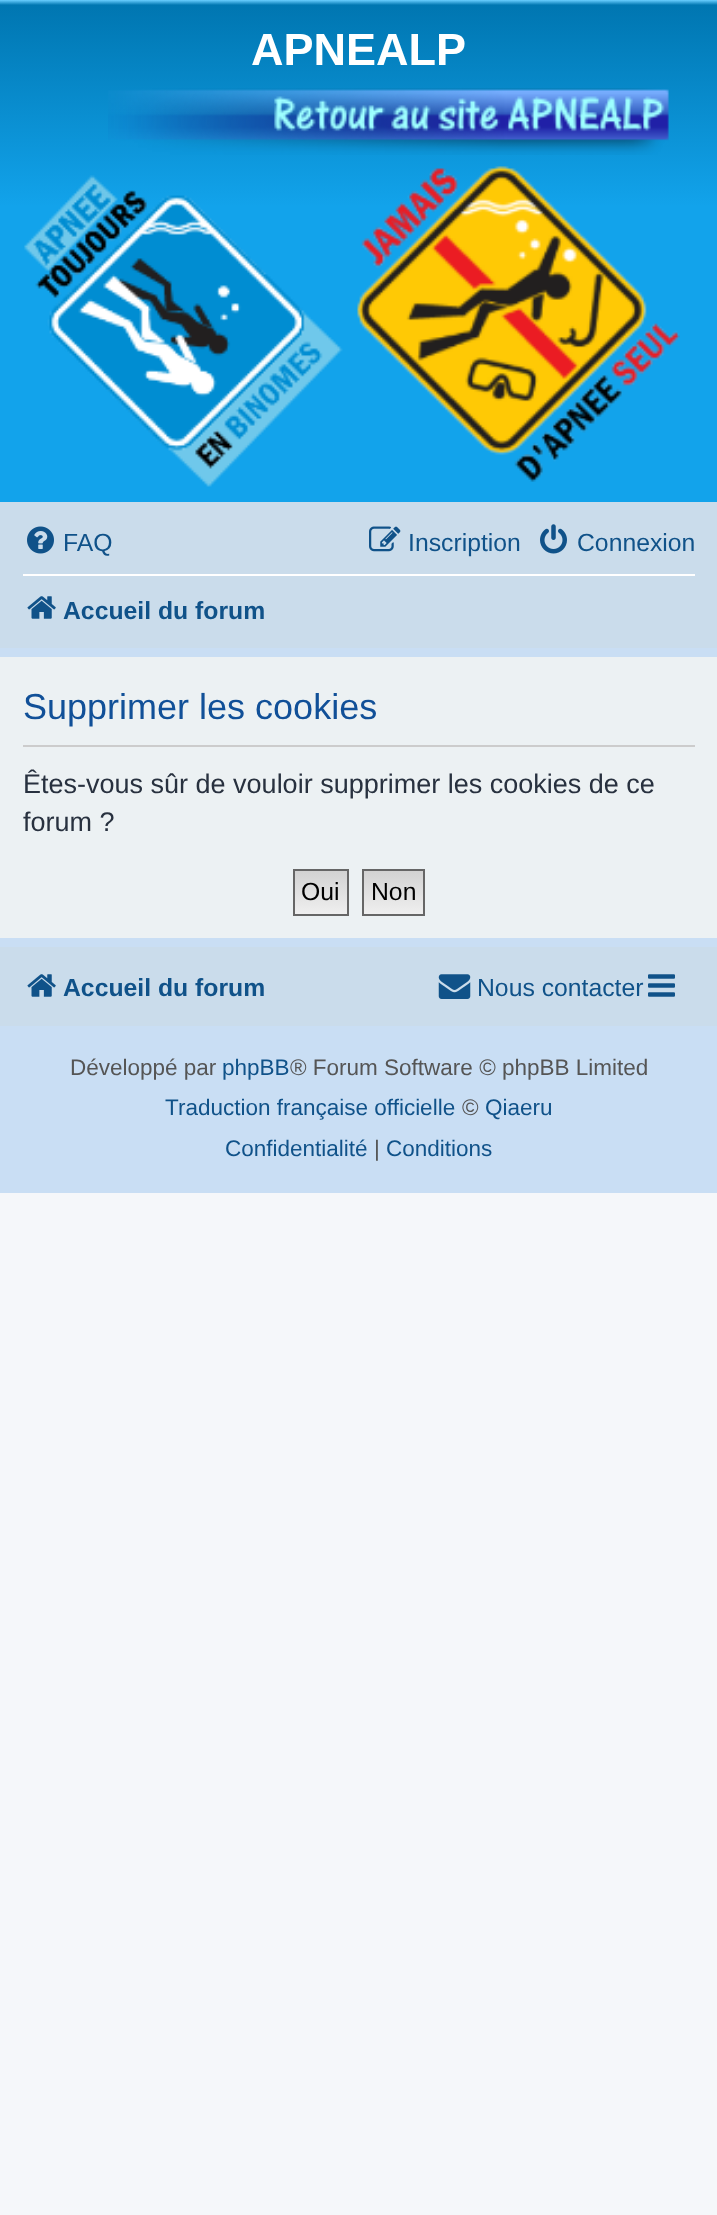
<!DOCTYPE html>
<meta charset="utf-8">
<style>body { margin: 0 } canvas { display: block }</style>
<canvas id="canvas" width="717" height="2215"></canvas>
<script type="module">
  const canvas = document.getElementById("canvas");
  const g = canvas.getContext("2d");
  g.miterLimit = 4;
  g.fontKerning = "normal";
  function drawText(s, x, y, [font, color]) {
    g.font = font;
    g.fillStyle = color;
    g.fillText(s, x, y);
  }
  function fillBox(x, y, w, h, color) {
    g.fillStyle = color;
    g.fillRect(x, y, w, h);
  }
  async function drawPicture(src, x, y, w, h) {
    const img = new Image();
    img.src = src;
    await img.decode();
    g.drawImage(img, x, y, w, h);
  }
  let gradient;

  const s1 = ["bold 45px Liberation Sans", "#FFFFFF"];
  const s2 = ["24.75px Liberation Sans", "#105289"];
  const s3 = ["bold 24.75px Liberation Sans", "#105289"];
  const s4 = ["36px Liberation Sans", "#115098"];
  const s5 = ["27px Liberation Sans", "#28313F"];
  const s6 = ["24.75px Liberation Sans", "#000000"];
  const s7 = ["22.5px Liberation Sans", "#555555"];
  const s8 = ["22.5px Liberation Sans", "#105289"];

  fillBox(0, 0, 717, 2215, "#F5F7FA");
  fillBox(0, 648, 717, 545, "#C9DEF4");
  gradient = g.createLinearGradient(359, 0, 359, 504);
  gradient.addColorStop(0, "#6ACEFF");
  gradient.addColorStop(0.01, "#0076B1");
  gradient.addColorStop(0.41, "#12A3EB");
  gradient.addColorStop(1, "#12A3EB");
  g.fillStyle = gradient;
  g.fillRect(0, 0, 717, 502);
  drawText("APNEALP", 251, 65, s1);
  await drawPicture("pic1.png", 108, 88, 561, 67);
  await drawPicture("pic2.png", 24, 175, 319, 312);
  await drawPicture("pic3.png", 357, 166, 323, 316);
  fillBox(0, 502, 717, 146, "#CADCEB");
  await drawPicture("pic4.png", 27, 526, 27, 28);
  drawText("FAQ", 63, 551, s2);
  await drawPicture("pic5.png", 369, 526, 32, 26);
  drawText("Inscription", 408, 551, s2);
  await drawPicture("pic6.png", 540, 524, 27, 30);
  drawText("Connexion", 577, 551, s2);
  fillBox(23, 574, 672, 2, "#FFFFFF");
  await drawPicture("pic7.png", 27, 596, 29, 23);
  drawText("Accueil du forum", 63, 619, s3);
  fillBox(0, 657, 717, 281, "#ECF1F3");
  fillBox(23, 745, 672, 2, "#CCCCCC");
  drawText("Supprimer les cookies", 23, 719, s4);
  drawText("Êtes-vous sûr de vouloir supprimer les cookies de ce", 23, 793, s5);
  drawText("forum ?", 23, 831, s5);
  gradient = g.createLinearGradient(321, 871, 321, 914);
  gradient.addColorStop(0, "#D2D2D2");
  gradient.addColorStop(1, "#EFEFEF");
  g.fillStyle = gradient;
  g.fillRect(295, 871, 52, 43);
  g.strokeStyle = "#666666";
  g.lineWidth = 2;
  g.strokeRect(294, 870, 54, 45);
  drawText("Oui", 301, 900, s6);
  gradient = g.createLinearGradient(394, 871, 394, 914);
  gradient.addColorStop(0, "#D2D2D2");
  gradient.addColorStop(1, "#EFEFEF");
  g.fillStyle = gradient;
  g.fillRect(364, 871, 59, 43);
  g.strokeRect(363, 870, 61, 45);
  drawText("Non", 371, 900, s6);
  fillBox(0, 947, 717, 79, "#CADCEB");
  await drawPicture("pic7.png", 27, 974, 29, 23);
  drawText("Accueil du forum", 63, 996, s3);
  await drawPicture("pic8.png", 438, 974, 33, 25);
  drawText("Nous contacter", 477, 996, s2);
  await drawPicture("pic9.png", 648, 974, 27, 23);
  drawText("Développé par", 70, 1075, s7);
  drawText("phpBB", 222, 1075, s8);
  drawText("® Forum Software © phpBB Limited", 290, 1075, s7);
  drawText("Traduction française officielle", 165, 1115, s8);
  drawText("©", 462, 1115, s7);
  drawText("Qiaeru", 485, 1115, s8);
  drawText("Confidentialité", 225, 1156, s8);
  drawText("|", 374, 1156, s7);
  drawText("Conditions", 386, 1156, s8);
</script>
